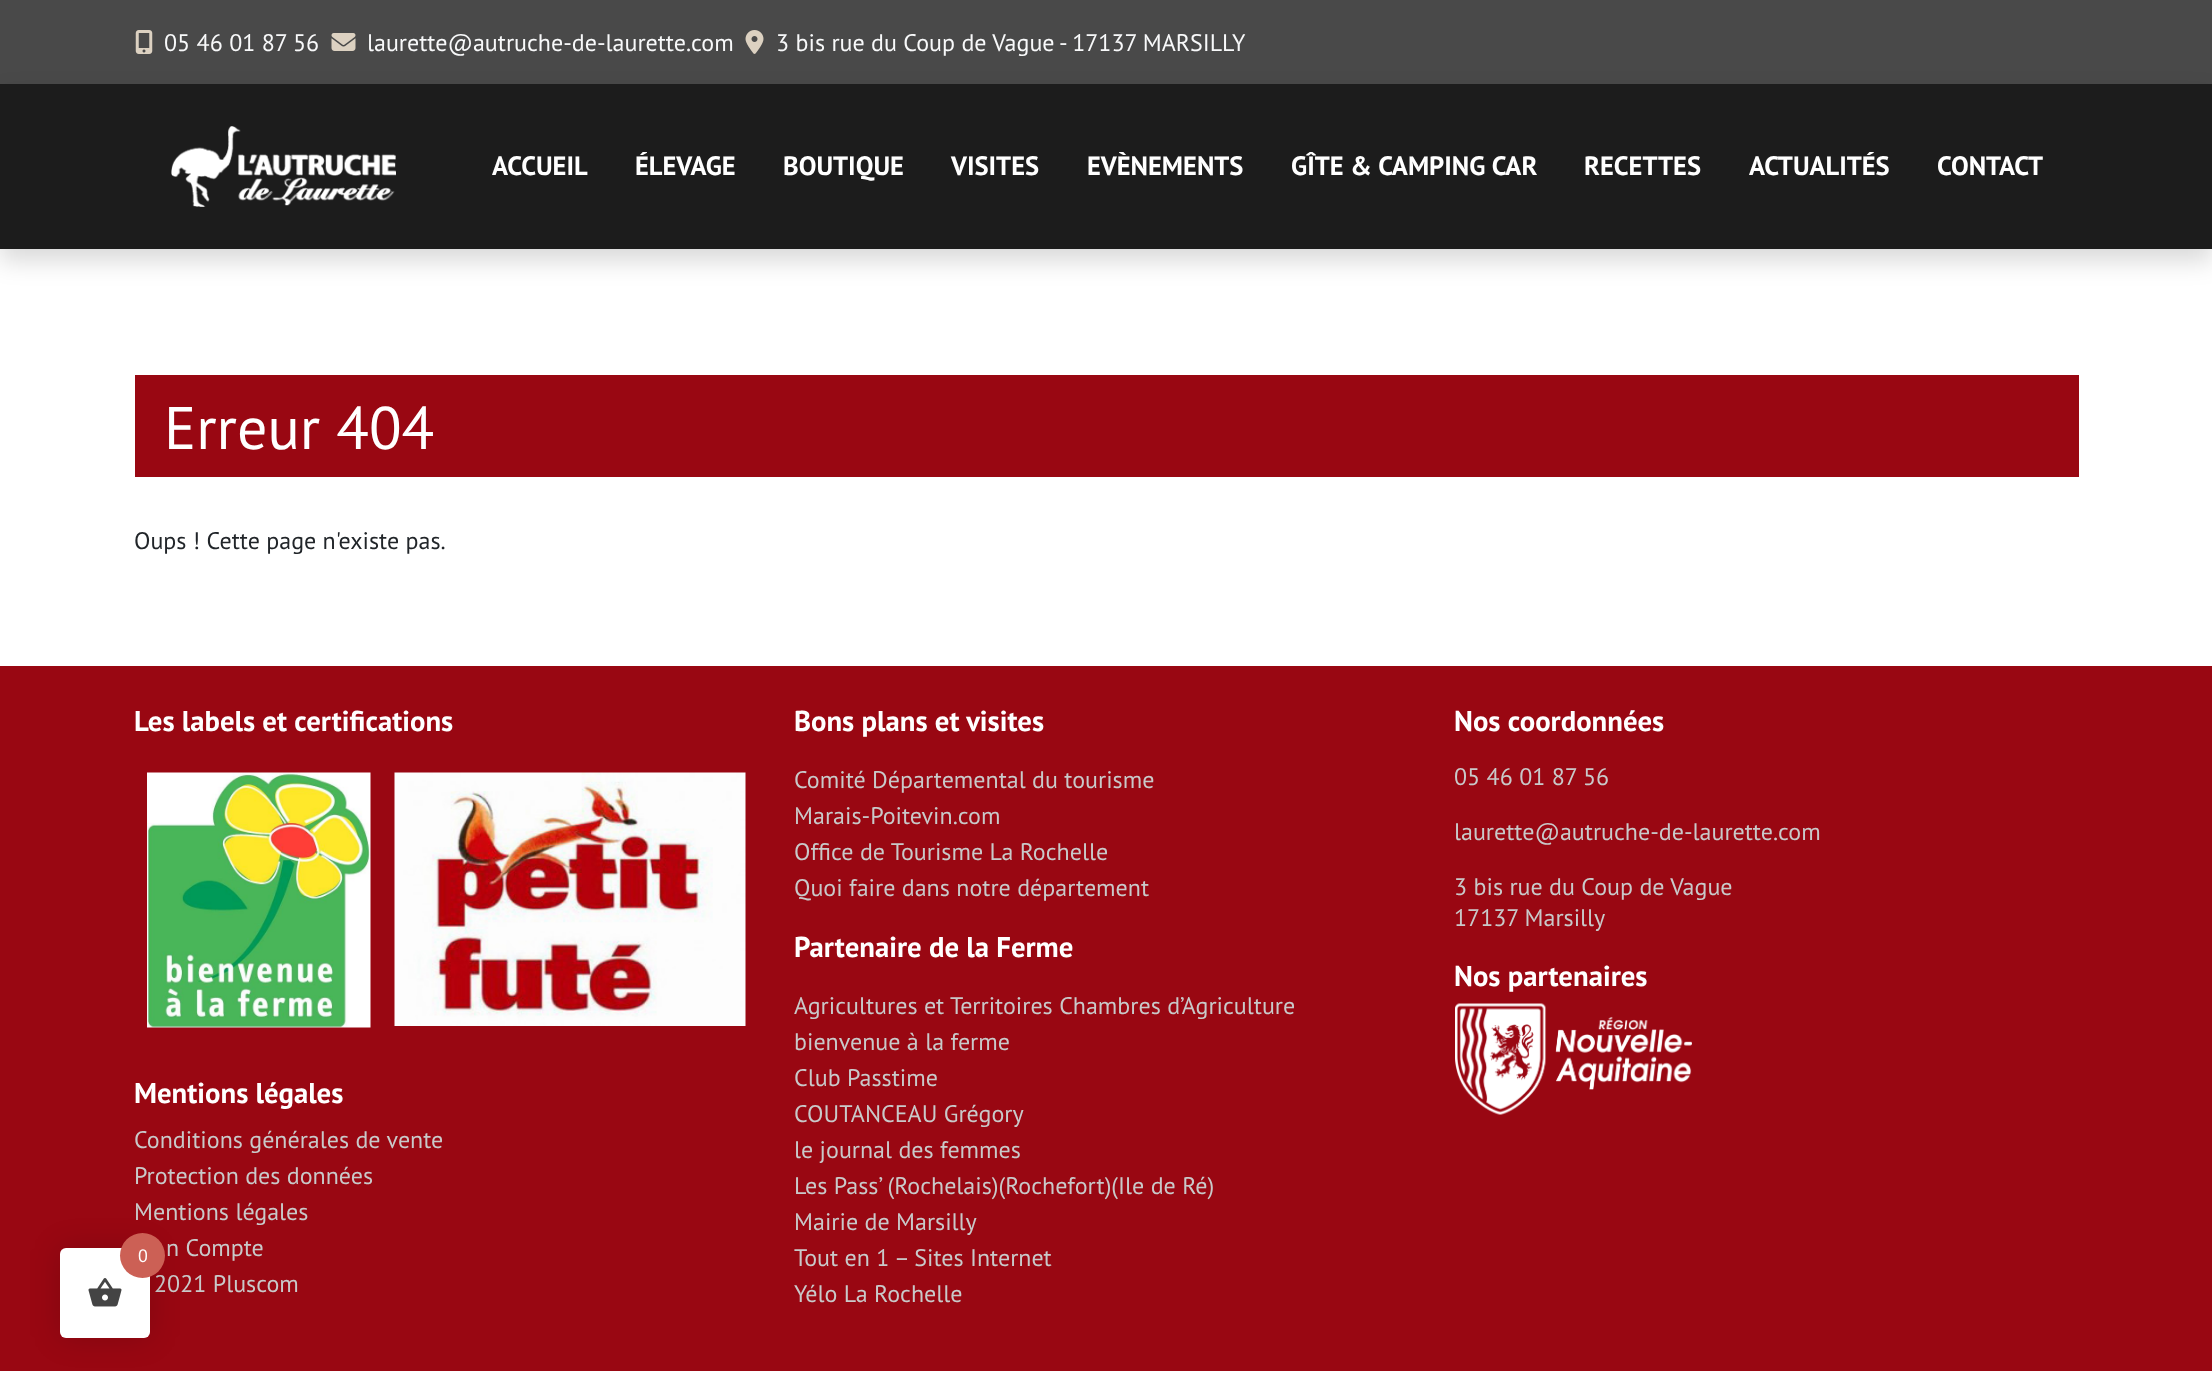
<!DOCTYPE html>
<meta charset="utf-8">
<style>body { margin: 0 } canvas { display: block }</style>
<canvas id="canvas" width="2212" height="1397"></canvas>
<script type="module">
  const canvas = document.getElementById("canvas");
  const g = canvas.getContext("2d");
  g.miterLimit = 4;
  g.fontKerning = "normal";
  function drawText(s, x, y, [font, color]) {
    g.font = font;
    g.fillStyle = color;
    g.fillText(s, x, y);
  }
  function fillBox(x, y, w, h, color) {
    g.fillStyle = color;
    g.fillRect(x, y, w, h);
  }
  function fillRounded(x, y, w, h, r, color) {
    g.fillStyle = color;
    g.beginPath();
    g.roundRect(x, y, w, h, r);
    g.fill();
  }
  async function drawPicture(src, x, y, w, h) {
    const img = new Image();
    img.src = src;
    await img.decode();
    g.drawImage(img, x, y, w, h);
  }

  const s1 = ["24px PT Sans", "#F8F9FA"];
  const s2 = ["bold 26.5px PT Sans", "#FFFFFF"];
  const s3 = ["60px PT Sans", "#FFFFFF"];
  const s4 = ["24px PT Sans", "#212529"];
  const s5 = ["bold 28.75px PT Sans", "#FFFFFF"];
  const s6 = ["24px PT Sans", "#C9C9C9"];
  const s7 = ["18px PT Sans", "#FFFFFF"];

  fillBox(0, 0, 2212, 1397, "#FFFFFF");
  fillBox(0, 0, 2212, 84, "#494949");
  await drawPicture("pic1.png", 135, 30, 18, 24);
  drawText("05 46 01 87 56", 164, 51, s1);
  await drawPicture("pic2.png", 331, 33, 25, 18);
  drawText("laurette@autruche-de-laurette.com", 367, 51, s1);
  await drawPicture("pic3.png", 745, 30, 19, 24);
  drawText("3 bis rue du Coup de Vague - 17137 MARSILLY", 776, 51, s1);
  g.fillStyle = "rgba(0, 0, 0, 0.15)";
  g.filter = "blur(12px)";
  g.beginPath();
  g.rect(0, 96, 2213, 165);
  g.fill();
  g.filter = "none";
  fillBox(0, 84, 2212, 165, "#1C1C1C");
  await drawPicture("pic4.png", 171, 126, 225, 81);
  drawText("ACCUEIL", 492, 175, s2);
  drawText("ÉLEVAGE", 635, 175, s2);
  drawText("BOUTIQUE", 783, 175, s2);
  drawText("VISITES", 951, 175, s2);
  drawText("EVÈNEMENTS", 1087, 175, s2);
  drawText("GÎTE & CAMPING CAR", 1291, 175, s2);
  drawText("RECETTES", 1584, 175, s2);
  drawText("ACTUALITÉS", 1749, 175, s2);
  drawText("CONTACT", 1937, 175, s2);
  fillBox(135, 375, 1944, 102, "#990712");
  drawText("Erreur 404", 164, 449, s3);
  drawText("Oups ! Cette page n'existe pas.", 134, 549, s4);
  fillBox(0, 666, 2212, 705, "#990712");
  drawText("Les labels et certifications", 134, 731, s5);
  await drawPicture("pic5.png", 147, 772, 224, 256);
  await drawPicture("pic6.png", 394, 772, 352, 254);
  drawText("Mentions légales", 134, 1103, s5);
  drawText("Conditions générales de vente", 134, 1148, s6);
  drawText("Protection des données", 134, 1184, s6);
  drawText("Mentions légales", 134, 1220, s6);
  drawText("n Compte", 166, 1256, s6);
  drawText("2021 Pluscom", 154, 1292, s6);
  drawText("Bons plans et visites", 794, 731, s5);
  drawText("Comité Départemental du tourisme", 794, 788, s6);
  drawText("Marais-Poitevin.com", 794, 824, s6);
  drawText("Office de Tourisme La Rochelle", 794, 860, s6);
  drawText("Quoi faire dans notre département", 794, 896, s6);
  drawText("Partenaire de la Ferme", 794, 957, s5);
  drawText("Agricultures et Territoires Chambres d’Agriculture", 794, 1014, s6);
  drawText("bienvenue à la ferme", 794, 1050, s6);
  drawText("Club Passtime", 794, 1086, s6);
  drawText("COUTANCEAU Grégory", 794, 1122, s6);
  drawText("le journal des femmes", 794, 1158, s6);
  drawText("Les Pass’ (Rochelais)(Rochefort)(Ile de Ré)", 794, 1194, s6);
  drawText("Mairie de Marsilly", 794, 1230, s6);
  drawText("Tout en 1 – Sites Internet", 794, 1266, s6);
  drawText("Yélo La Rochelle", 794, 1302, s6);
  drawText("Nos coordonnées", 1454, 731, s5);
  drawText("05 46 01 87 56", 1454, 785, s6);
  drawText("laurette@autruche-de-laurette.com", 1454, 840, s6);
  drawText("3 bis rue du Coup de Vague", 1454, 895, s6);
  drawText("17137 Marsilly", 1454, 926, s6);
  drawText("Nos partenaires", 1454, 986, s5);
  await drawPicture("pic7.png", 1455, 1003, 237, 112);
  g.fillStyle = "rgba(0, 0, 0, 0.15)";
  g.filter = "blur(15px)";
  g.beginPath();
  g.roundRect(60, 1248, 90, 90, 6);
  g.fill();
  g.filter = "none";
  fillRounded(60, 1248, 90, 90, 6, "#FFFFFF");
  g.fillStyle = "#CC6055";
  g.beginPath();
  g.arc(142.5, 1255.5, 22.5, 0, Math.PI * 2);
  g.fill();
  drawText("0", 138, 1262, s7);
  await drawPicture("pic8.png", 88, 1278, 34, 29);
</script>
